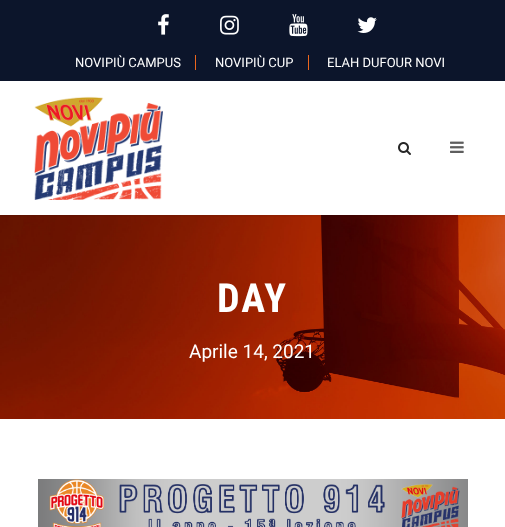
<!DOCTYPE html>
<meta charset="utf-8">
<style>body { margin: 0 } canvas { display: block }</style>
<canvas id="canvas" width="505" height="527"></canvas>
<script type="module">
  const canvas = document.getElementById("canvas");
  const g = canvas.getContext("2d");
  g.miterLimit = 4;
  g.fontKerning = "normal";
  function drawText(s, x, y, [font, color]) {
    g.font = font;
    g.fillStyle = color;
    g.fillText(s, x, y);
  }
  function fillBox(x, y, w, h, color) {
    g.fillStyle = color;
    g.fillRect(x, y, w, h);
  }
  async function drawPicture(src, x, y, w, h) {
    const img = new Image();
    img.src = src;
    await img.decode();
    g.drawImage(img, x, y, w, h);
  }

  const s1 = ["13px Roboto", "#FFFFFF"];
  const s2 = ["bold 40px Roboto Condensed", "#FFFFFF"];
  const s3 = ["19px Roboto", "#FFFFFF"];

  fillBox(0, 0, 505, 527, "#FFFFFF");
  fillBox(0, 0, 505, 81, "#0C152B");
  await drawPicture("pic1.png", 158, 14, 11, 21);
  await drawPicture("pic2.png", 220, 15, 19, 20);
  await drawPicture("pic3.png", 289, 14, 19, 23);
  await drawPicture("pic4.png", 357, 17, 20, 16);
  drawText("NOVIPIÙ CAMPUS", 75, 67, s1);
  fillBox(195, 55, 1, 15, "#EC661D");
  drawText("NOVIPIÙ CUP", 215, 67, s1);
  fillBox(308, 55, 1, 15, "#EC661D");
  drawText("ELAH DUFOUR NOVI", 327, 67, s1);
  await drawPicture("pic8.png", 0, 215, 505, 204);
  g.save();
  g.beginPath();
  g.rect(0, 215, 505, 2);
  g.clip();
  g.fillStyle = "rgba(0, 0, 0, 0.1)";
  g.filter = "blur(1px)";
  g.beginPath();
  g.rect(0, 82, 505, 134);
  g.fill();
  g.filter = "none";
  g.restore();
  await drawPicture("pic5.png", 34, 96, 129, 104);
  await drawPicture("pic6.png", 398, 142, 13, 13);
  await drawPicture("pic7.png", 450, 141, 14, 12);
  g.letterSpacing = "2px";
  drawText("DAY", 217, 312, s2);
  g.letterSpacing = "0px";
  drawText("Aprile 14, 2021", 189, 358, s3);
  await drawPicture("pic9.png", 38, 479, 430, 48);
</script>
